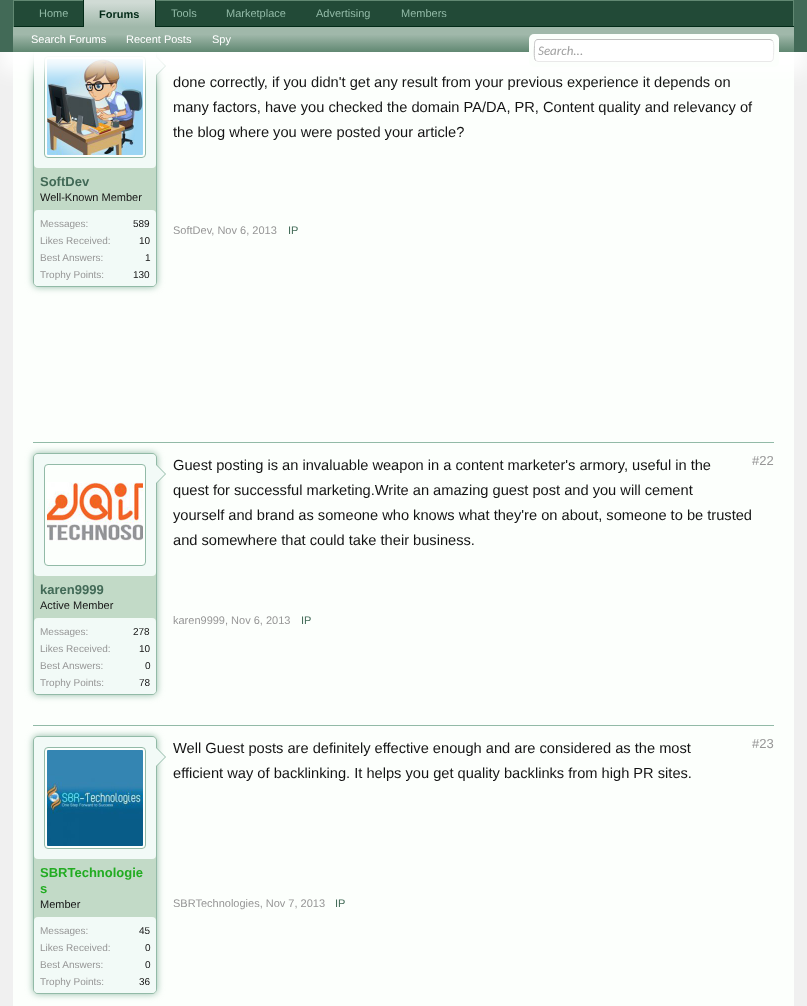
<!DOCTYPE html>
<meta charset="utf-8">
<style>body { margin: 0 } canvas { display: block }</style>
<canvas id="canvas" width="807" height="1006"></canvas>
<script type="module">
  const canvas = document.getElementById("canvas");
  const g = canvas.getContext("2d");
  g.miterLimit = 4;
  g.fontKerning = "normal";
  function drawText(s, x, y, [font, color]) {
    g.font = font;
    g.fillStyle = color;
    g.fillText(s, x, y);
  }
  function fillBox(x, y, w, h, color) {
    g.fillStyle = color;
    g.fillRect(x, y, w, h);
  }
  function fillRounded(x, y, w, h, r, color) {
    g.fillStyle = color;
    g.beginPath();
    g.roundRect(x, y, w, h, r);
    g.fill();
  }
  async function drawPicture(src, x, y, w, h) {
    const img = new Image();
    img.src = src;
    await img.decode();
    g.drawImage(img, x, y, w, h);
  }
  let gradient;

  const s1 = ["11px Liberation Sans", "#92BAA7"];
  const s2 = ["bold 11px Liberation Sans", "#022A17"];
  const s3 = ["11px Liberation Sans", "#FFFFFF"];
  const s4 = ["italic 13px Carlito", "#A0A0A0"];
  const s5 = ["bold 13px Liberation Sans", "#426A57"];
  const s6 = ["11px Liberation Sans", "#141414"];
  const s7 = ["10px Liberation Sans", "#969696"];
  const s8 = ["10px Liberation Sans", "#141414"];
  const s9 = ["14.65px Liberation Sans", "#141414"];
  const s10 = ["11px Liberation Sans", "#969696"];
  const s11 = ["11px Liberation Sans", "#426A57"];
  const s12 = ["13px Liberation Sans", "#969696"];
  const s13 = ["bold 13px Liberation Sans", "#22AC22"];

  fillBox(0, 0, 807, 1006, "#F0F0F0");
  fillBox(13, 52, 781, 954, "#FCFFFC");
  g.fillStyle = "#92BAA7";
  g.filter = "blur(3.5px)";
  g.beginPath();
  g.roundRect(33, 45, 124, 242, 5);
  g.fill();
  g.filter = "none";
  fillRounded(33, 45, 124, 242, 5, "#C2DAC7");
  g.save();
  g.beginPath();
  g.roundRect(33, 45, 124, 242, 5);
  g.clip();
  gradient = g.createLinearGradient(95, 46, 95, 286);
  gradient.addColorStop(0.95, "rgba(255, 255, 255, 0)");
  gradient.addColorStop(1, "rgba(255, 255, 255, 0.5)");
  g.fillStyle = gradient;
  g.fillRect(33, 282, 124, 4);
  g.restore();
  g.beginPath();
  g.roundRect(33.5, 45.5, 123, 241, 4.5);
  g.strokeStyle = "#92BAA7";
  g.stroke();
  fillRounded(34, 46, 122, 122, 4, "#F2FAF7");
  g.fillStyle = "#FCFFFC";
  g.beginPath();
  g.roundRect(44.5, 56.5, 101, 101, 3.5);
  g.fill();
  g.stroke();
  await drawPicture("pic1.png", 47, 59, 96, 96);
  g.fillStyle = "#92BAA7";
  g.beginPath();
  g.moveTo(156, 76);
  g.lineTo(156, 56);
  g.lineTo(166, 66);
  g.closePath();
  g.fill();
  g.fillStyle = "#F2FAF7";
  g.beginPath();
  g.moveTo(155, 76);
  g.lineTo(155, 56);
  g.lineTo(165, 66);
  g.closePath();
  g.fill();
  g.fillStyle = "#FFFFFF";
  g.filter = "blur(10px)";
  g.beginPath();
  g.rect(0, -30, 807, 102);
  g.fill();
  g.filter = "none";
  fillBox(0, 0, 807, 52, "#426A57");
  fillBox(14, 1, 779, 25, "#224A37");
  fillBox(13, 0, 781, 1, "#618872");
  fillBox(793, 0, 1, 27, "#618872");
  fillBox(13, 26, 781, 1, "#022A17");
  fillBox(13, 0, 1, 27, "#618872");
  drawText("Home", 39, 17, s1);
  drawText("Tools", 171, 17, s1);
  drawText("Marketplace", 226, 17, s1);
  drawText("Advertising", 316, 17, s1);
  drawText("Members", 401, 17, s1);
  gradient = g.createLinearGradient(120, 0, 120, 27);
  gradient.addColorStop(0, "#D0DBD5");
  gradient.addColorStop(0.1, "#D0DBD5");
  gradient.addColorStop(1, "#A0B8AA");
  g.fillStyle = gradient;
  g.fillRect(84, 0, 71, 27);
  fillBox(155, 0, 1, 27, "#022A17");
  fillBox(83, 0, 1, 27, "#022A17");
  drawText("Forums", 99, 18, s2);
  gradient = g.createLinearGradient(404, 27, 404, 52);
  gradient.addColorStop(0, "#A0B8AA");
  gradient.addColorStop(0.3, "#A0B8AA");
  gradient.addColorStop(1, "#618872");
  g.fillStyle = gradient;
  g.fillRect(13, 27, 781, 25);
  drawText("Search Forums", 31, 43, s3);
  drawText("Recent Posts", 126, 43, s3);
  drawText("Spy", 212, 43, s3);
  fillRounded(529, 34, 250, 33, 5, "#FCFFFC");
  fillRounded(534, 39, 240, 23, 4, "#FFFFFF");
  g.beginPath();
  g.moveTo(772.5, 40.5);
  g.bezierCurveTo(774.5, 43, 773.5, 52.5, 773.5, 55.5);
  g.bezierCurveTo(773.5, 58, 773.5, 61.5, 770, 61.5);
  g.lineTo(538, 61.5);
  g.lineTo(535.5, 60.5);
  g.strokeStyle = "#E9E9E9";
  g.stroke();
  g.beginPath();
  g.moveTo(535.5, 60.5);
  g.bezierCurveTo(533.5, 58, 534.5, 48.5, 534.5, 45.5);
  g.bezierCurveTo(534.5, 43, 534.5, 39.5, 538, 39.5);
  g.lineTo(770, 39.5);
  g.lineTo(772.5, 40.5);
  g.strokeStyle = "#C0C0C0";
  g.stroke();
  drawText("Search...", 538, 55, s4);
  drawText("SoftDev", 40, 186, s5);
  drawText("Well-Known Member", 40, 201, s6);
  fillRounded(34, 210, 122, 76, 4, "#F2FAF7");
  drawText("Messages:", 40, 227, s7);
  drawText("589", 133, 227, s8);
  drawText("Likes Received:", 40, 244, s7);
  drawText("10", 139, 244, s8);
  drawText("Best Answers:", 40, 261, s7);
  drawText("1", 145, 261, s8);
  drawText("Trophy Points:", 40, 278, s7);
  drawText("130", 133, 278, s8);
  drawText("done correctly, if you didn't get any result from your previous experience it depends on", 173, 87, s9);
  drawText("many factors, have you checked the domain PA/DA, PR, Content quality and relevancy of", 173, 112, s9);
  drawText("the blog where you were posted your article?", 173, 137, s9);
  drawText("SoftDev, Nov 6, 2013", 173, 234, s10);
  drawText("IP", 288, 234, s11);
  fillBox(33, 442, 741, 1, "#92BAA7");
  drawText("Guest posting is an invaluable weapon in a content marketer's armory, useful in the", 173, 470, s9);
  drawText("quest for successful marketing.Write an amazing guest post and you will cement", 173, 495, s9);
  drawText("yourself and brand as someone who knows what they're on about, someone to be trusted", 173, 520, s9);
  drawText("and somewhere that could take their business.", 173, 545, s9);
  drawText("#22", 752, 465, s12);
  drawText("karen9999, Nov 6, 2013", 173, 624, s10);
  drawText("IP", 301, 624, s11);
  g.fillStyle = "#92BAA7";
  g.filter = "blur(3.5px)";
  g.beginPath();
  g.roundRect(33, 453, 124, 242, 5);
  g.fill();
  g.filter = "none";
  fillRounded(33, 453, 124, 242, 5, "#C2DAC7");
  g.save();
  g.beginPath();
  g.roundRect(33, 453, 124, 242, 5);
  g.clip();
  gradient = g.createLinearGradient(95, 454, 95, 694);
  gradient.addColorStop(0.95, "rgba(255, 255, 255, 0)");
  gradient.addColorStop(1, "rgba(255, 255, 255, 0.5)");
  g.fillStyle = gradient;
  g.fillRect(33, 690, 124, 4);
  g.restore();
  g.beginPath();
  g.roundRect(33.5, 453.5, 123, 241, 4.5);
  g.strokeStyle = "#92BAA7";
  g.stroke();
  fillRounded(34, 454, 122, 122, 4, "#F2FAF7");
  g.fillStyle = "#FCFFFC";
  g.beginPath();
  g.roundRect(44.5, 464.5, 101, 101, 3.5);
  g.fill();
  g.stroke();
  await drawPicture("pic2.png", 47, 482, 96, 59);
  g.fillStyle = "#92BAA7";
  g.beginPath();
  g.moveTo(156, 484);
  g.lineTo(156, 464);
  g.lineTo(166, 474);
  g.closePath();
  g.fill();
  g.fillStyle = "#F2FAF7";
  g.beginPath();
  g.moveTo(155, 484);
  g.lineTo(155, 464);
  g.lineTo(165, 474);
  g.closePath();
  g.fill();
  drawText("karen9999", 40, 594, s5);
  drawText("Active Member", 40, 609, s6);
  fillRounded(34, 618, 122, 76, 4, "#F2FAF7");
  drawText("Messages:", 40, 635, s7);
  drawText("278", 133, 635, s8);
  drawText("Likes Received:", 40, 652, s7);
  drawText("10", 139, 652, s8);
  drawText("Best Answers:", 40, 669, s7);
  drawText("0", 145, 669, s8);
  drawText("Trophy Points:", 40, 686, s7);
  drawText("78", 139, 686, s8);
  fillBox(33, 725, 741, 1, "#92BAA7");
  drawText("Well Guest posts are definitely effective enough and are considered as the most", 173, 753, s9);
  drawText("efficient way of backlinking. It helps you get quality backlinks from high PR sites.", 173, 778, s9);
  drawText("#23", 752, 748, s12);
  drawText("SBRTechnologies, Nov 7, 2013", 173, 907, s10);
  drawText("IP", 335, 907, s11);
  g.fillStyle = "#92BAA7";
  g.filter = "blur(3.5px)";
  g.beginPath();
  g.roundRect(33, 736, 124, 258, 5);
  g.fill();
  g.filter = "none";
  fillRounded(33, 736, 124, 258, 5, "#C2DAC7");
  g.save();
  g.beginPath();
  g.roundRect(33, 736, 124, 258, 5);
  g.clip();
  gradient = g.createLinearGradient(95, 737, 95, 993);
  gradient.addColorStop(0.95, "rgba(255, 255, 255, 0)");
  gradient.addColorStop(1, "rgba(255, 255, 255, 0.5)");
  g.fillStyle = gradient;
  g.fillRect(33, 989, 124, 4);
  g.restore();
  g.beginPath();
  g.roundRect(33.5, 736.5, 123, 257, 4.5);
  g.stroke();
  fillRounded(34, 737, 122, 122, 4, "#F2FAF7");
  g.fillStyle = "#FCFFFC";
  g.beginPath();
  g.roundRect(44.5, 747.5, 101, 101, 3.5);
  g.fill();
  g.stroke();
  await drawPicture("pic3.png", 47, 750, 96, 96);
  g.fillStyle = "#92BAA7";
  g.beginPath();
  g.moveTo(156, 767);
  g.lineTo(156, 747);
  g.lineTo(166, 757);
  g.closePath();
  g.fill();
  g.fillStyle = "#F2FAF7";
  g.beginPath();
  g.moveTo(155, 767);
  g.lineTo(155, 747);
  g.lineTo(165, 757);
  g.closePath();
  g.fill();
  drawText("SBRTechnologie", 40, 877, s13);
  drawText("s", 40, 893, s13);
  drawText("Member", 40, 908, s6);
  fillRounded(34, 917, 122, 76, 4, "#F2FAF7");
  drawText("Messages:", 40, 934, s7);
  drawText("45", 139, 934, s8);
  drawText("Likes Received:", 40, 951, s7);
  drawText("0", 145, 951, s8);
  drawText("Best Answers:", 40, 968, s7);
  drawText("0", 145, 968, s8);
  drawText("Trophy Points:", 40, 985, s7);
  drawText("36", 139, 985, s8);
</script>
